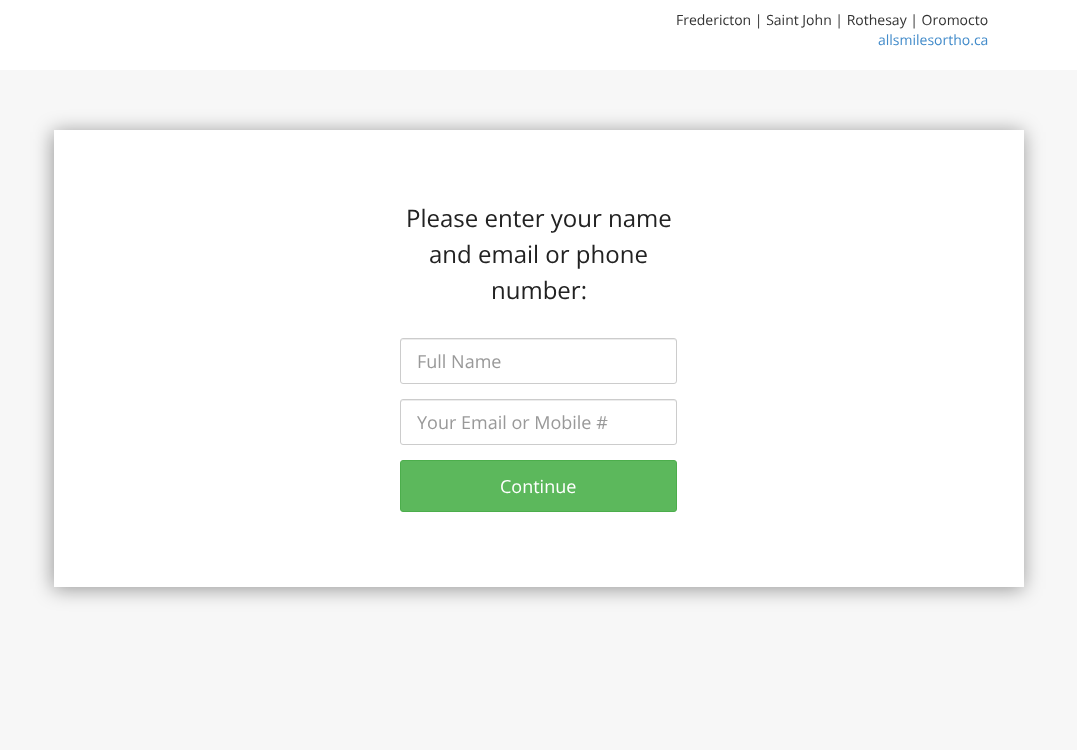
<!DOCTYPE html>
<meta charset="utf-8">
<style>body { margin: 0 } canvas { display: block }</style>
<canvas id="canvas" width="1077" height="750"></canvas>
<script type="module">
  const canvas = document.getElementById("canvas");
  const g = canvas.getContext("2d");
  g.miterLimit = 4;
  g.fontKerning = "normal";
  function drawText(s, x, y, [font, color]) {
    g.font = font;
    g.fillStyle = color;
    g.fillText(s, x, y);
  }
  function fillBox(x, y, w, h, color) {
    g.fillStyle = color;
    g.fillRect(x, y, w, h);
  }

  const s1 = ["14px Open Sans", "#333333"];
  const s2 = ["14px Open Sans", "#428BCA"];
  const s3 = ["24px Open Sans", "#222222"];
  const s4 = ["18px Open Sans", "#999999"];
  const s5 = ["18px Open Sans", "#FFFFFF"];

  fillBox(0, 0, 1077, 750, "#F7F7F7");
  fillBox(0, 0, 1077, 70, "#FFFFFF");
  drawText("Fredericton | Saint John | Rothesay | Oromocto", 676, 25, s1);
  drawText("allsmilesortho.ca", 878, 45, s2);
  g.fillStyle = "rgba(0, 0, 0, 0.4)";
  g.filter = "blur(10px)";
  g.beginPath();
  g.rect(53, 132, 970, 457);
  g.fill();
  g.filter = "none";
  fillBox(54, 130, 970, 457, "#FFFFFF");
  drawText("Please enter your name", 406, 227, s3);
  drawText("and email or phone", 429, 263, s3);
  drawText("number:", 491, 299, s3);
  g.fillStyle = "#ECECEC";
  g.beginPath();
  g.moveTo(403, 340);
  g.lineTo(674, 340);
  g.bezierCurveTo(675, 340, 676, 341, 676, 342);
  g.bezierCurveTo(676, 341, 676, 339, 674, 339);
  g.lineTo(403, 339);
  g.lineTo(401, 340);
  g.lineTo(401, 342);
  g.bezierCurveTo(401, 341, 402, 340, 403, 340);
  g.closePath();
  g.fill();
  g.beginPath();
  g.roundRect(400.5, 338.5, 276, 45, 2.5);
  g.strokeStyle = "#CCCCCC";
  g.stroke();
  drawText("Full Name", 417, 368, s4);
  g.fillStyle = "#ECECEC";
  g.beginPath();
  g.moveTo(403, 401);
  g.lineTo(674, 401);
  g.bezierCurveTo(675, 401, 676, 402, 676, 403);
  g.bezierCurveTo(676, 402, 676, 400, 674, 400);
  g.lineTo(403, 400);
  g.lineTo(401, 401);
  g.lineTo(401, 403);
  g.bezierCurveTo(401, 402, 402, 401, 403, 401);
  g.closePath();
  g.fill();
  g.beginPath();
  g.roundRect(400.5, 399.5, 276, 45, 2.5);
  g.stroke();
  drawText("Your Email or Mobile #", 417, 429, s4);
  g.fillStyle = "#5CB85C";
  g.beginPath();
  g.roundRect(400.5, 460.5, 276, 51, 2.5);
  g.fill();
  g.strokeStyle = "#4CAE4C";
  g.stroke();
  drawText("Continue", 500, 493, s5);
</script>
